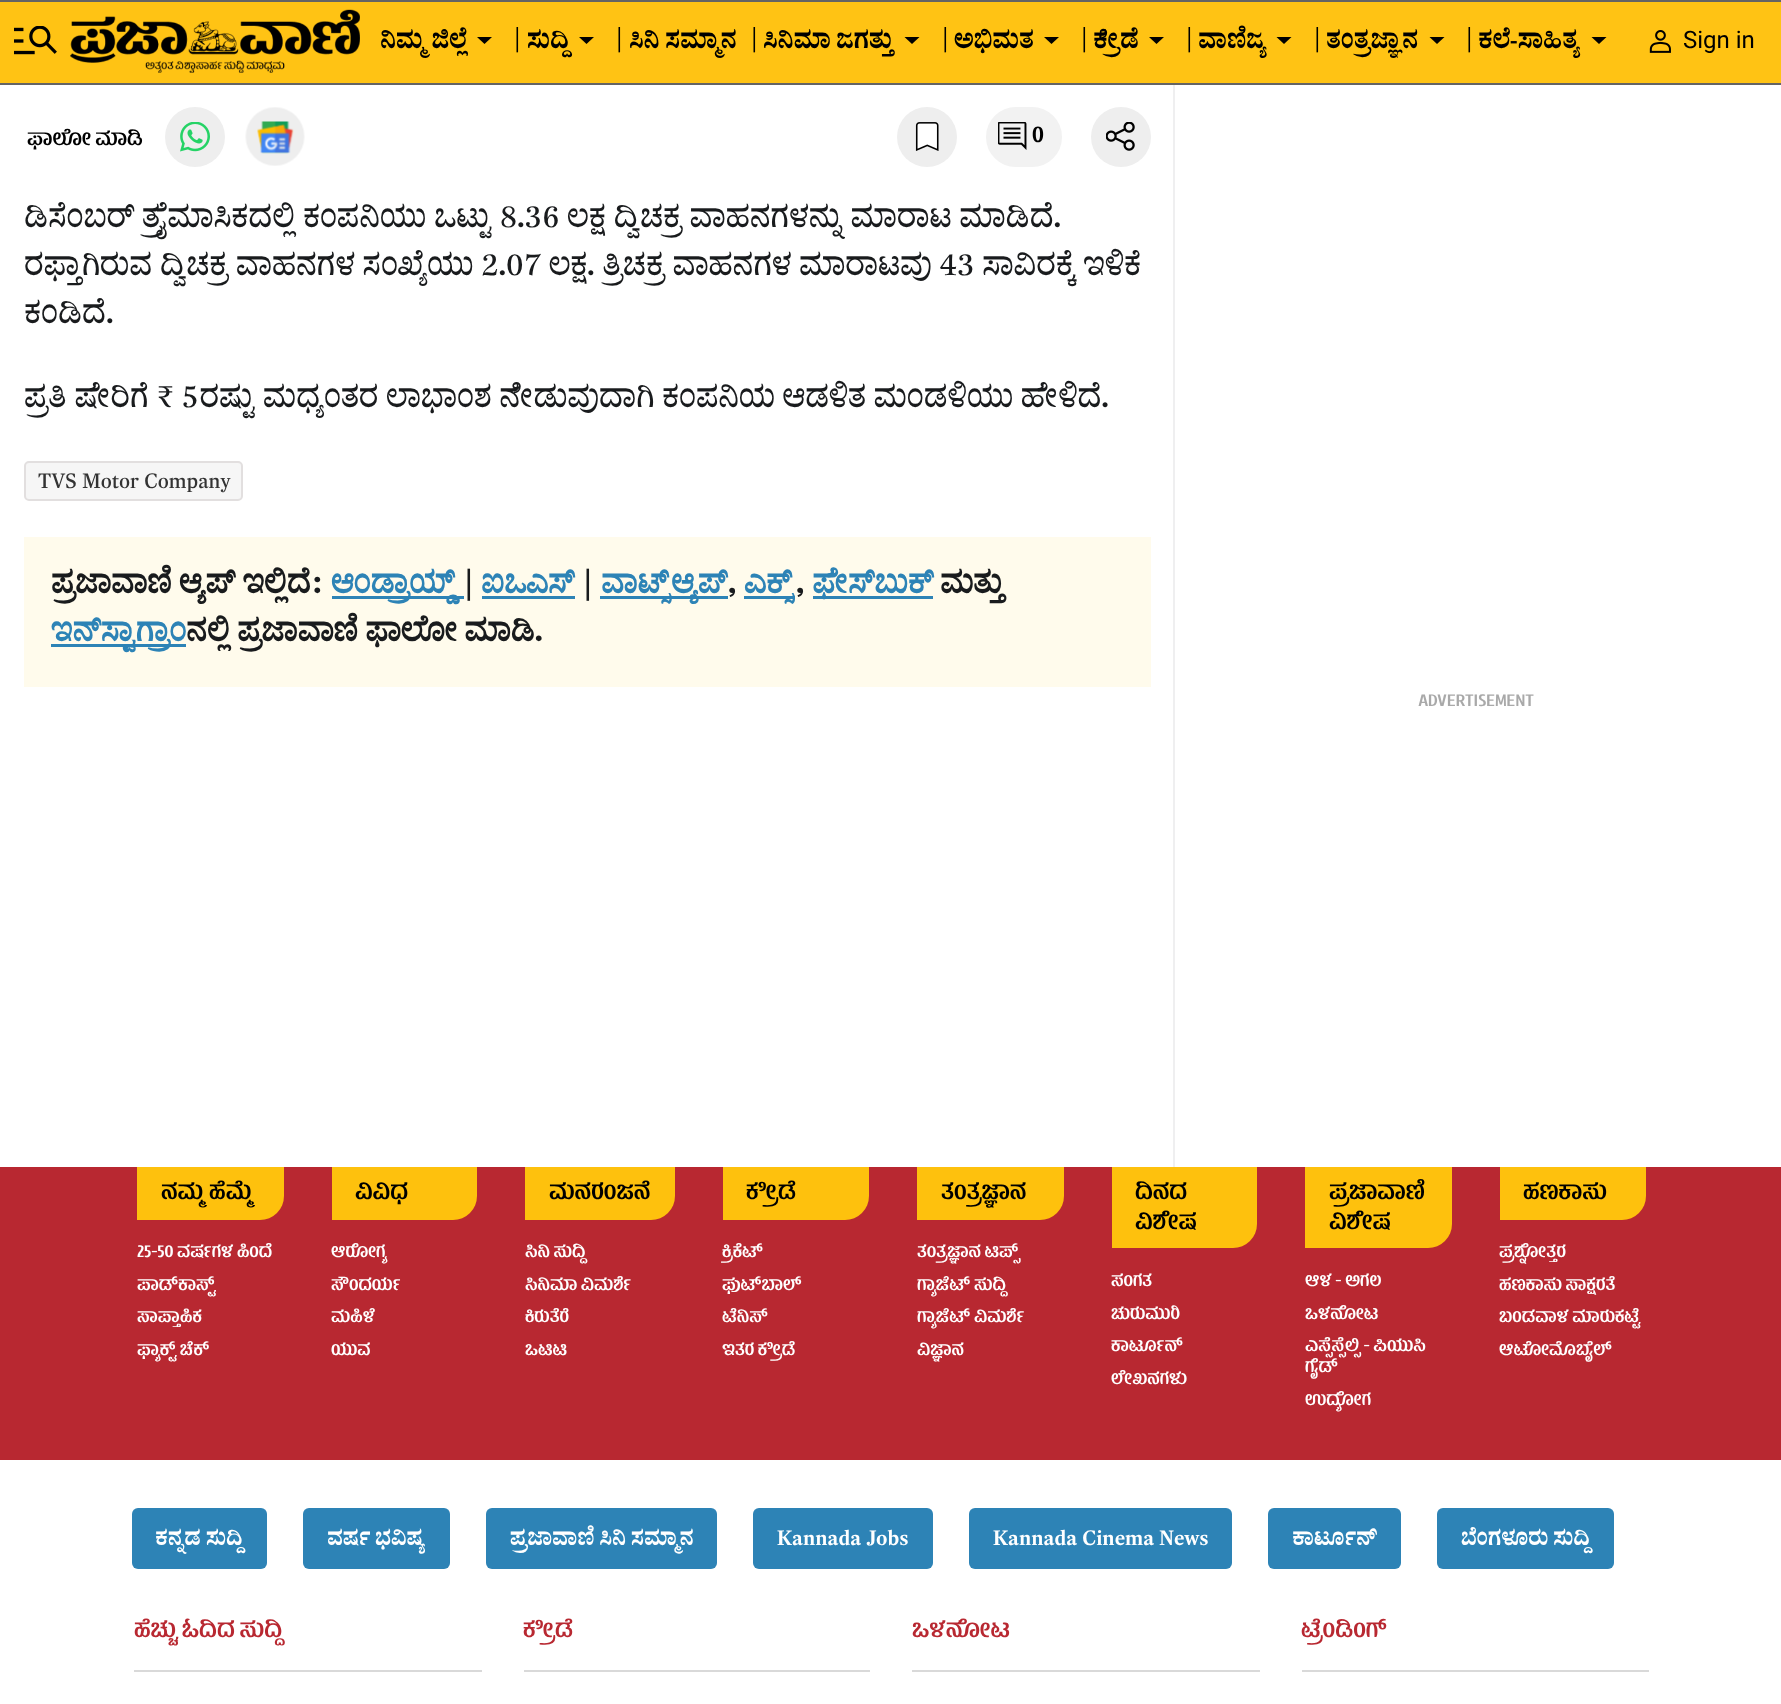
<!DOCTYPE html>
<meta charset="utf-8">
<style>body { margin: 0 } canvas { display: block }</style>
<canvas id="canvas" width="1781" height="1704"></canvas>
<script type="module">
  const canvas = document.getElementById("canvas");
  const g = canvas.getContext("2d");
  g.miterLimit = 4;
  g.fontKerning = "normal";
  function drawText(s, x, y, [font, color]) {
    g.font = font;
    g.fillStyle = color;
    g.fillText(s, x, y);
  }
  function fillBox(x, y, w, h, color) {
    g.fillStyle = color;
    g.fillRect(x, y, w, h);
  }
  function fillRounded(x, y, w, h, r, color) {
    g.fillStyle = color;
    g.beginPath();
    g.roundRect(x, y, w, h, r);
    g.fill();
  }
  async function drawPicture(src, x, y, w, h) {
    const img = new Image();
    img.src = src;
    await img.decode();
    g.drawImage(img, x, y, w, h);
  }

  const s1 = ["600 24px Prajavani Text", "#000000"];
  const s2 = ["24px Roboto", "#000000"];
  const s3 = ["600 21px 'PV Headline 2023'", "#000000"];
  const s4 = ["600 24px 'PV Headline 2023'", "#000000"];
  const s5 = ["30px Prajavani Text", "#191B1D"];
  const s6 = ["21px Prajavani Text", "#333333"];
  const s7 = ["bold 30px Prajavani Text", "#191B1D"];
  const s8 = ["bold 30px Prajavani Text", "#2D83B6"];
  const s9 = ["600 18px 'PV Headline 2023'", "#A9A9A9"];
  const s10 = ["600 18px 'PV Headline 2023'", "#FFFFFF"];
  const s11 = ["600 21px Prajavani Text", "#FFFFFF"];
  const s12 = ["600 24px 'PV Headline 2023'", "#B82831"];

  fillBox(0, 0, 1781, 1704, "#FFFFFF");
  fillBox(0, 2, 1781, 81, "#FFC314");
  fillBox(0, 0, 1781, 2, "#646464");
  fillBox(0, 83, 1781, 2, "#646464");
  await drawPicture("pic1.png", 14, 26, 43, 29);
  await drawPicture("pic2.png", 70, 9, 290, 64);
  drawText("ನಿಮ್ಮ ಜಿಲ್ಲೆ", 380, 48, s1);
  g.beginPath();
  g.moveTo(484.5, 44);
  g.lineTo(477, 37);
  g.lineTo(492, 37);
  g.closePath();
  g.fill();
  drawText("|", 513, 46, s1);
  drawText("ಸುದ್ದಿ", 527, 48, s1);
  g.beginPath();
  g.moveTo(586.5, 44);
  g.lineTo(579, 37);
  g.lineTo(594, 37);
  g.closePath();
  g.fill();
  drawText("|", 615, 46, s1);
  drawText("ಸಿನಿ ಸಮ್ಮಾನ", 629, 48, s1);
  drawText("|", 750, 46, s1);
  drawText("ಸಿನಿಮಾ ಜಗತ್ತು", 763, 48, s1);
  g.beginPath();
  g.moveTo(912, 44);
  g.lineTo(904.5, 37);
  g.lineTo(919.5, 37);
  g.closePath();
  g.fill();
  drawText("|", 941, 46, s1);
  drawText("ಅಭಿಮತ", 954, 48, s1);
  g.beginPath();
  g.moveTo(1051.5, 44);
  g.lineTo(1044, 37);
  g.lineTo(1059, 37);
  g.closePath();
  g.fill();
  drawText("|", 1080, 46, s1);
  drawText("ಕ್ರೀಡೆ", 1093, 48, s1);
  g.beginPath();
  g.moveTo(1156.5, 44);
  g.lineTo(1149, 37);
  g.lineTo(1164, 37);
  g.closePath();
  g.fill();
  drawText("|", 1185, 46, s1);
  drawText("ವಾಣಿಜ್ಯ", 1198, 48, s1);
  g.beginPath();
  g.moveTo(1284, 44);
  g.lineTo(1276.5, 37);
  g.lineTo(1291.5, 37);
  g.closePath();
  g.fill();
  drawText("|", 1313, 46, s1);
  drawText("ತಂತ್ರಜ್ಞಾನ", 1326, 48, s1);
  g.beginPath();
  g.moveTo(1437, 44);
  g.lineTo(1429.5, 37);
  g.lineTo(1444.5, 37);
  g.closePath();
  g.fill();
  drawText("|", 1465, 46, s1);
  drawText("ಕಲೆ-ಸಾಹಿತ್ಯ", 1478, 48, s1);
  g.beginPath();
  g.moveTo(1599, 44);
  g.lineTo(1591.5, 37);
  g.lineTo(1606.5, 37);
  g.closePath();
  g.fill();
  await drawPicture("pic3.png", 1649, 30, 22, 23);
  drawText("Sign in", 1683, 48, s2);
  drawText("ಫಾಲೋ ಮಾಡಿ", 27, 145, s3);
  g.fillStyle = "#EEEEEE";
  g.beginPath();
  g.arc(195, 137, 30, 0, Math.PI * 2);
  g.fill();
  await drawPicture("pic4.png", 180, 122, 30, 30);
  await drawPicture("pic5.png", 245, 107, 60, 59);
  g.beginPath();
  g.arc(927, 137, 30, 0, Math.PI * 2);
  g.fill();
  await drawPicture("pic6.png", 915, 122, 24, 29);
  g.fillStyle = "#F2F2F2";
  g.beginPath();
  g.roundRect(987, 108, 74, 58, 29);
  g.fill();
  g.strokeStyle = "#F2F2F2";
  g.lineWidth = 2;
  g.stroke();
  await drawPicture("pic7.png", 998, 122, 29, 28);
  drawText("0", 1032, 142, s4);
  g.fillStyle = "#EEEEEE";
  g.beginPath();
  g.arc(1121, 137, 30, 0, Math.PI * 2);
  g.fill();
  await drawPicture("pic8.png", 1106, 122, 29, 29);
  drawText("ಡಿಸೆಂಬರ್ ತ್ರೈಮಾಸಿಕದಲ್ಲಿ ಕಂಪನಿಯು ಒಟ್ಟು 8.36 ಲಕ್ಷ ದ್ವಿಚಕ್ರ ವಾಹನಗಳನ್ನು ಮಾರಾಟ ಮಾಡಿದೆ.", 24, 227, s5);
  drawText("ರಫ್ತಾಗಿರುವ ದ್ವಿಚಕ್ರ ವಾಹನಗಳ ಸಂಖ್ಯೆಯು 2.07 ಲಕ್ಷ. ತ್ರಿಚಕ್ರ ವಾಹನಗಳ ಮಾರಾಟವು 43 ಸಾವಿರಕ್ಕೆ ಇಳಿಕೆ", 24, 275, s5);
  drawText("ಕಂಡಿದೆ.", 24, 323, s5);
  drawText("ಪ್ರತಿ ಷೇರಿಗೆ ₹ 5ರಷ್ಟು ಮಧ್ಯಂತರ ಲಾಭಾಂಶ ನೀಡುವುದಾಗಿ ಕಂಪನಿಯ ಆಡಳಿತ ಮಂಡಳಿಯು ಹೇಳಿದೆ.", 24, 407, s5);
  g.fillStyle = "#F6F6F6";
  g.beginPath();
  g.roundRect(25, 462, 217, 38, 4);
  g.fill();
  g.strokeStyle = "#E2DFDF";
  g.stroke();
  drawText("TVS Motor Company", 38, 488, s6);
  fillBox(24, 537, 1127, 150, "#FFFBEC");
  drawText("ಪ್ರಜಾವಾಣಿ ಆ್ಯಪ್ ಇಲ್ಲಿದೆ:", 51, 593, s7);
  fillBox(332, 596, 132, 3, "#2D83B6");
  drawText("ಆಂಡ್ರಾಯ್ಡ್", 331, 593, s8);
  drawText("|", 463, 593, s7);
  drawText("ಐಒಎಸ್", 481, 593, s8);
  fillBox(482, 596, 93, 3, "#2D83B6");
  drawText("|", 582, 593, s7);
  fillBox(600, 596, 128, 3, "#2D83B6");
  drawText("ವಾಟ್ಸ್ಆ್ಯಪ್", 601, 593, s8);
  drawText(",", 727, 593, s7);
  fillBox(744, 596, 51, 3, "#2D83B6");
  drawText("ಎಕ್ಸ್", 744, 593, s8);
  drawText(",", 795, 593, s7);
  fillBox(813, 596, 120, 3, "#2D83B6");
  drawText("ಫೇಸ್‌ಬುಕ್", 812, 593, s8);
  drawText("ಮತ್ತು", 940, 593, s7);
  fillBox(51, 644, 135, 3, "#2D83B6");
  drawText("ಇನ್‌ಸ್ಟಾಗ್ರಾಂ", 51, 641, s8);
  drawText("ನಲ್ಲಿ ಪ್ರಜಾವಾಣಿ ಫಾಲೋ ಮಾಡಿ.", 186, 641, s7);
  fillBox(1173, 85, 2, 1082, "#EFEFF0");
  drawText("ADVERTISEMENT", 1418, 706, s9);
  fillBox(0, 1167, 1781, 293, "#B82831");
  g.fillStyle = "#FEC10D";
  g.beginPath();
  g.roundRect(137, 1167, 147, 53, [0, 0, 24, 0]);
  g.fill();
  drawText("ನಮ್ಮ ಹೆಮ್ಮೆ", 161, 1199, s4);
  drawText("25-50 ವರ್ಷಗಳ ಹಿಂದೆ", 137, 1257, s10);
  drawText("ಪಾಡ್‌ಕಾಸ್ಟ್", 137, 1290, s10);
  drawText("ಸಾಪ್ತಾಹಿಕ", 137, 1322, s10);
  drawText("ಫ್ಯಾಕ್ಟ್ ಚೆಕ್", 137, 1355, s10);
  g.fillStyle = "#FEC10D";
  g.beginPath();
  g.roundRect(332, 1167, 145, 53, [0, 0, 24, 0]);
  g.fill();
  drawText("ವಿವಿಧ", 355, 1199, s4);
  drawText("ಆರೋಗ್ಯ", 331, 1257, s10);
  drawText("ಸೌಂದರ್ಯ", 331, 1290, s10);
  drawText("ಮಹಿಳೆ", 331, 1322, s10);
  drawText("ಯುವ", 331, 1355, s10);
  g.fillStyle = "#FEC10D";
  g.beginPath();
  g.roundRect(525, 1167, 150, 53, [0, 0, 24, 0]);
  g.fill();
  drawText("ಮನರಂಜನೆ", 549, 1199, s4);
  drawText("ಸಿನಿ ಸುದ್ದಿ", 525, 1257, s10);
  drawText("ಸಿನಿಮಾ ವಿಮರ್ಶೆ", 525, 1290, s10);
  drawText("ಕಿರುತೆರೆ", 525, 1322, s10);
  drawText("ಒಟಿಟಿ", 525, 1355, s10);
  g.fillStyle = "#FEC10D";
  g.beginPath();
  g.roundRect(723, 1167, 146, 53, [0, 0, 24, 0]);
  g.fill();
  drawText("ಕ್ರೀಡೆ", 746, 1199, s4);
  drawText("ಕ್ರಿಕೆಟ್", 722, 1257, s10);
  drawText("ಫುಟ್‌ಬಾಲ್", 722, 1290, s10);
  drawText("ಟೆನಿಸ್", 722, 1322, s10);
  drawText("ಇತರ ಕ್ರೀಡೆ", 722, 1355, s10);
  g.fillStyle = "#FEC10D";
  g.beginPath();
  g.roundRect(917, 1167, 147, 53, [0, 0, 24, 0]);
  g.fill();
  drawText("ತಂತ್ರಜ್ಞಾನ", 941, 1199, s4);
  drawText("ತಂತ್ರಜ್ಞಾನ ಟಿಪ್ಸ್", 917, 1257, s10);
  drawText("ಗ್ಯಾಜೆಟ್ ಸುದ್ದಿ", 917, 1290, s10);
  drawText("ಗ್ಯಾಜೆಟ್ ವಿಮರ್ಶೆ", 917, 1322, s10);
  drawText("ವಿಜ್ಞಾನ", 917, 1355, s10);
  g.fillStyle = "#FEC10D";
  g.beginPath();
  g.roundRect(1112, 1167, 145, 81, [0, 0, 24, 0]);
  g.fill();
  drawText("ದಿನದ", 1135, 1199, s4);
  drawText("ವಿಶೇಷ", 1135, 1229, s4);
  drawText("ಸಂಗತ", 1111, 1286, s10);
  drawText("ಚುರುಮುರಿ", 1111, 1319, s10);
  drawText("ಕಾರ್ಟೂನ್", 1111, 1351, s10);
  drawText("ಲೇಖನಗಳು", 1111, 1384, s10);
  g.fillStyle = "#FEC10D";
  g.beginPath();
  g.roundRect(1305, 1167, 147, 81, [0, 0, 24, 0]);
  g.fill();
  drawText("ಪ್ರಜಾವಾಣಿ", 1329, 1199, s4);
  drawText("ವಿಶೇಷ", 1329, 1229, s4);
  drawText("ಆಳ - ಅಗಲ", 1305, 1286, s10);
  drawText("ಒಳನೋಟ", 1305, 1319, s10);
  drawText("ಎಸ್ಸೆಸ್ಸೆಲ್ಸಿ - ಪಿಯುಸಿ", 1305, 1351, s10);
  drawText("ಗೈಡ್", 1305, 1372, s10);
  drawText("ಉದ್ಯೋಗ", 1305, 1405, s10);
  g.fillStyle = "#FEC10D";
  g.beginPath();
  g.roundRect(1500, 1167, 146, 53, [0, 0, 24, 0]);
  g.fill();
  drawText("ಹಣಕಾಸು", 1523, 1199, s4);
  drawText("ಪ್ರಶ್ನೋತ್ತರ", 1499, 1257, s10);
  drawText("ಹಣಕಾಸು ಸಾಕ್ಷರತೆ", 1499, 1290, s10);
  drawText("ಬಂಡವಾಳ ಮಾರುಕಟ್ಟೆ", 1499, 1322, s10);
  drawText("ಆಟೋಮೊಬೈಲ್", 1499, 1355, s10);
  fillRounded(132, 1508, 135, 61, 6, "#2D83B6");
  drawText("ಕನ್ನಡ ಸುದ್ದಿ", 155, 1545, s11);
  fillRounded(303, 1508, 147, 61, 6, "#2D83B6");
  drawText("ವರ್ಷ ಭವಿಷ್ಯ", 327, 1545, s11);
  fillRounded(486, 1508, 231, 61, 6, "#2D83B6");
  drawText("ಪ್ರಜಾವಾಣಿ ಸಿನಿ ಸಮ್ಮಾನ", 510, 1545, s11);
  fillRounded(753, 1508, 180, 61, 6, "#2D83B6");
  drawText("Kannada Jobs", 777, 1545, s11);
  fillRounded(969, 1508, 263, 61, 6, "#2D83B6");
  drawText("Kannada Cinema News", 993, 1545, s11);
  fillRounded(1268, 1508, 133, 61, 6, "#2D83B6");
  drawText("ಕಾರ್ಟೂನ್", 1292, 1545, s11);
  fillRounded(1437, 1508, 177, 61, 6, "#2D83B6");
  drawText("ಬೆಂಗಳೂರು ಸುದ್ದಿ", 1461, 1545, s11);
  fillBox(134, 1670, 348, 2, "#D9D9D9");
  drawText("ಹೆಚ್ಚು ಓದಿದ ಸುದ್ದಿ", 134, 1637, s12);
  fillBox(524, 1670, 346, 2, "#D9D9D9");
  drawText("ಕ್ರೀಡೆ", 523, 1637, s12);
  fillBox(912, 1670, 348, 2, "#D9D9D9");
  drawText("ಒಳನೋಟ", 912, 1637, s12);
  fillBox(1302, 1670, 347, 2, "#D9D9D9");
  drawText("ಟ್ರೆಂಡಿಂಗ್", 1301, 1637, s12);
</script>
